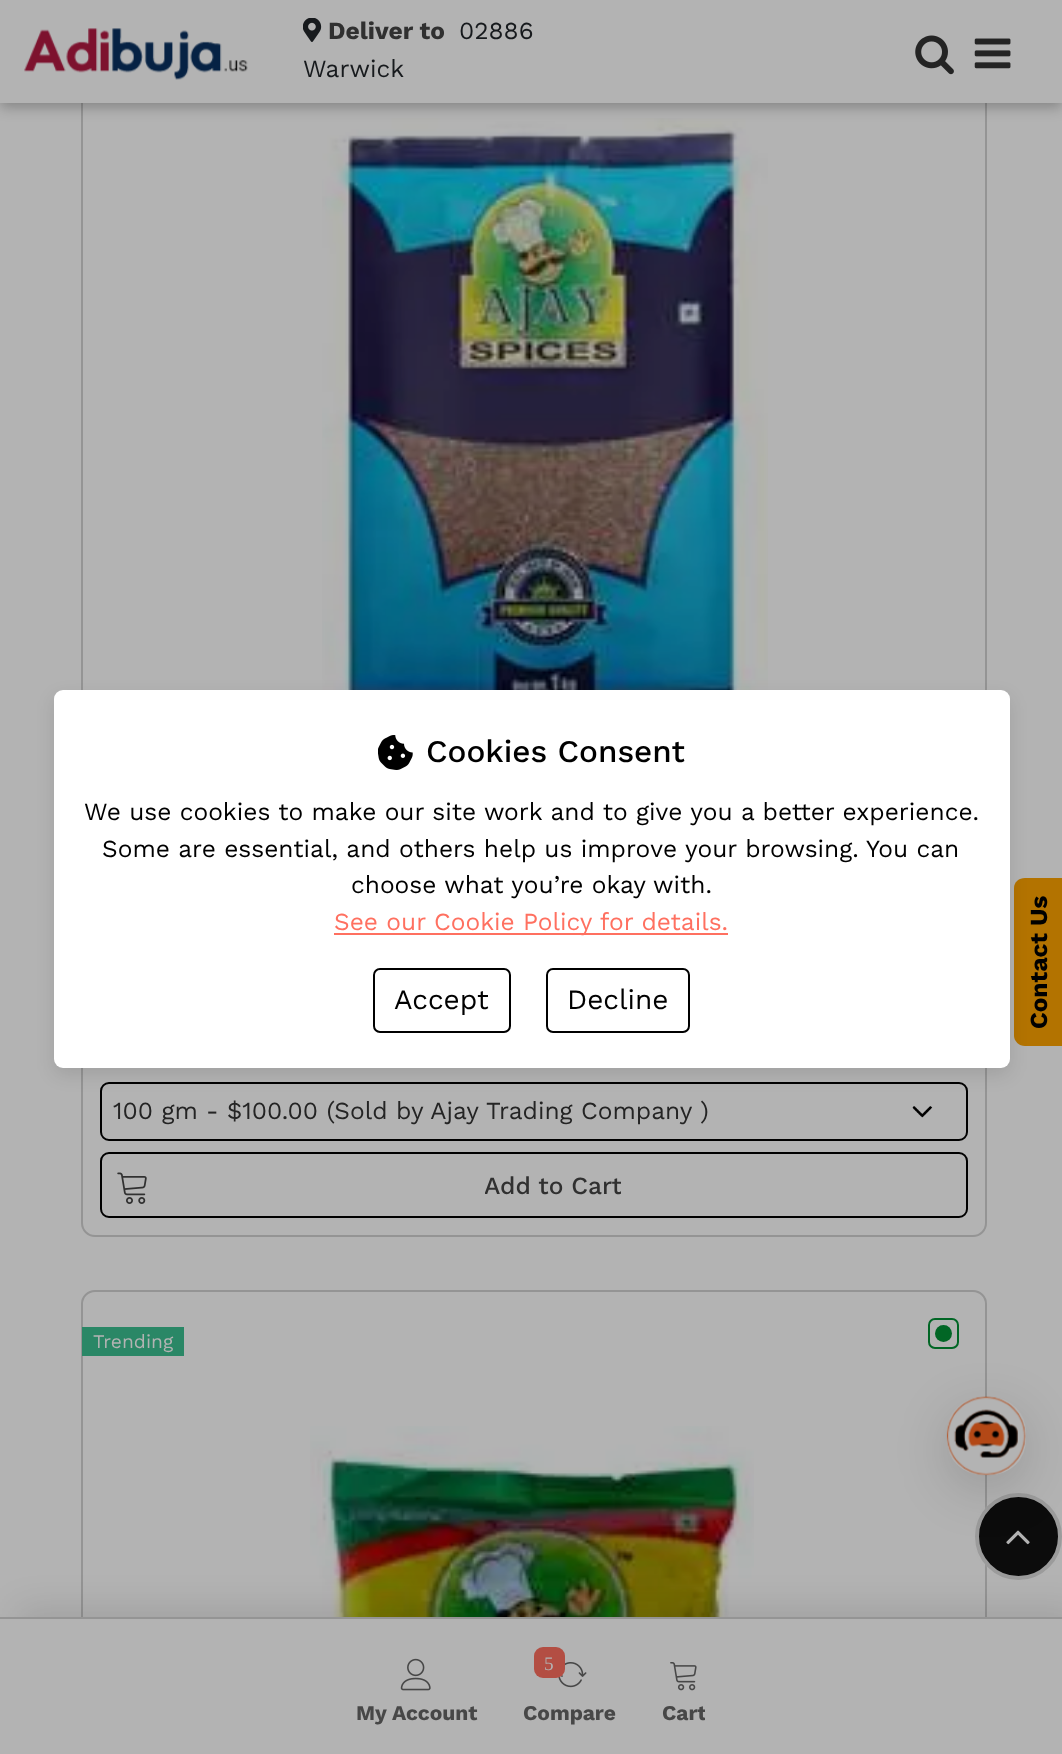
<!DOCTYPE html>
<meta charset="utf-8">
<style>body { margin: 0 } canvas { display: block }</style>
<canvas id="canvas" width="1062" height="1754"></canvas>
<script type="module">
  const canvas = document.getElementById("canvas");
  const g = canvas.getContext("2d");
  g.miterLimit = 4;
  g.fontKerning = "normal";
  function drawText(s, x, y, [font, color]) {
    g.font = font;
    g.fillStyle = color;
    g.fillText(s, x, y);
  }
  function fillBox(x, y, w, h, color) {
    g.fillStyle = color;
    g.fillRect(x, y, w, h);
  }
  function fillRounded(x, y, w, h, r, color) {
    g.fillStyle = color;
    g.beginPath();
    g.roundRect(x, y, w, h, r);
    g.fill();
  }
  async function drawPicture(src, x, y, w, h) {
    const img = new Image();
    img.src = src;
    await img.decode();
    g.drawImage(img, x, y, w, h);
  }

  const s1 = ["bold 24.5px Work Sans", "#303030"];
  const s2 = ["24.5px Work Sans", "#171A1D"];
  const s3 = ["bold 21px Work Sans", "#474747"];
  const s4 = ["19.25px Liberation Serif", "#B3B3B3"];
  const s5 = ["500 31.5px Work Sans", "#000000"];
  const s6 = ["24.5px Work Sans", "#000000"];
  const s7 = ["24.5px Work Sans", "#FF7060"];
  const s8 = ["28px Work Sans", "#000000"];
  const s9 = ["24.5px Work Sans", "#242424"];
  const s10 = ["500 24.5px Work Sans", "#303030"];
  const s11 = ["19.25px Work Sans", "#B3B3B3"];

  fillBox(0, 0, 1062, 1754, "#B3B3B3");
  g.beginPath();
  g.roundRect(82, -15, 904, 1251, 13);
  g.strokeStyle = "#949494";
  g.lineWidth = 2;
  g.stroke();
  await drawPicture("pic9.png", 322, 118, 446, 572);
  g.fillStyle = "rgba(0, 0, 0, 0.27)";
  g.filter = "blur(7px)";
  g.beginPath();
  g.rect(0, 4, 1062, 103);
  g.fill();
  g.filter = "none";
  fillBox(0, 0, 1062, 103, "#B3B3B3");
  await drawPicture("pic1.png", 24, 28, 224, 52);
  await drawPicture("pic2.png", 303, 18, 19, 24);
  drawText("Deliver to", 328, 39, s1);
  drawText("02886", 459, 39, s2);
  drawText("Warwick", 303, 77, s2);
  g.beginPath();
  g.roundRect(82, 1291, 904, 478, 13);
  g.stroke();
  await drawPicture("pic12.png", 310, 1426, 444, 191);
  g.fillStyle = "rgba(179, 179, 179, 0.5)";
  g.filter = "blur(1px)";
  g.beginPath();
  g.roundRect(975, 1493, 87, 87, 43.5);
  g.fill();
  g.filter = "none";
  g.fillStyle = "#0C0C0C";
  g.beginPath();
  g.arc(1018.5, 1536.5, 41.5, 0, Math.PI * 2);
  g.fill();
  g.strokeStyle = "#9B9B9B";
  g.lineWidth = 4;
  g.stroke();
  g.fillStyle = "rgba(0, 0, 0, 0.1)";
  g.filter = "blur(17.5px)";
  g.beginPath();
  g.rect(18, 1608, 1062, 139);
  g.fill();
  g.filter = "none";
  fillBox(0, 1619, 1062, 135, "#B3B3B3");
  fillBox(0, 1617, 1062, 2, "#949494");
  await drawPicture("pic3.png", 400, 1658, 31, 33);
  drawText("My Account", 356, 1720, s3);
  await drawPicture("pic4.png", 558, 1662, 29, 26);
  fillRounded(534, 1647, 31, 31, 9, "#B34E43");
  drawText("5", 544, 1670, s4);
  drawText("Compare", 523, 1720, s3);
  await drawPicture("pic5.png", 670, 1662, 27, 29);
  g.save();
  g.beginPath();
  g.rect(662, 1699, 43, 28);
  g.clip();
  drawText("Cart", 662, 1720, s3);
  g.restore();
  await drawPicture("pic6.png", 915, 35, 39, 40);
  await drawPicture("pic7.png", 974, 38, 37, 31);
  g.fillStyle = "#B37300";
  g.beginPath();
  g.moveTo(1014, 1036);
  g.lineTo(1014, 888);
  g.bezierCurveTo(1014, 882, 1019, 878, 1025, 878);
  g.lineTo(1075, 878);
  g.lineTo(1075, 1046);
  g.lineTo(1025, 1046);
  g.bezierCurveTo(1019, 1046, 1014, 1041, 1014, 1036);
  g.closePath();
  g.fill();
  g.beginPath();
  g.roundRect(101, 1083, 866, 57, 8);
  g.strokeStyle = "#000000";
  g.lineWidth = 2;
  g.stroke();
  g.fillStyle = "rgba(0, 0, 0, 0.1)";
  g.filter = "blur(9px)";
  g.beginPath();
  g.roundRect(54, 697, 956, 378, 9);
  g.fill();
  g.filter = "none";
  fillRounded(54, 690, 956, 378, 9, "#FFFFFF");
  await drawPicture("pic8.png", 378, 735, 35, 35);
  drawText("Cookies Consent", 426, 762, s5);
  drawText("We use cookies to make our site work and to give you a better experience.", 84, 820, s6);
  drawText("Some are essential, and others help us improve your browsing. You can", 102, 857, s6);
  drawText("choose what you’re okay with.", 351, 893, s6);
  fillBox(334, 933, 394, 2, "#FF7060");
  drawText("See our Cookie Policy for details.", 334, 930, s7);
  g.beginPath();
  g.roundRect(374, 969, 136, 63, 6);
  g.stroke();
  drawText("Accept", 394, 1009, s8);
  g.beginPath();
  g.roundRect(547, 969, 142, 63, 6);
  g.stroke();
  drawText("Decline", 567, 1009, s8);
  g.font = "bold 24.5px Work Sans";
  g.save();
  g.translate(1047, 1029);
  g.rotate(-90 * Math.PI / 180);
  g.fillText("Contact Us", 0, 0);
  g.restore();
  await drawPicture("pic10.png", 912, 1106, 21, 12);
  drawText("100 gm - $100.00 (Sold by Ajay Trading Company )", 113, 1119, s9);
  g.beginPath();
  g.roundRect(101, 1153, 866, 64, 8);
  g.stroke();
  await drawPicture("pic11.png", 117, 1172, 30, 32);
  g.save();
  g.beginPath();
  g.rect(485, 1167, 136, 37);
  g.clip();
  drawText("Add to Cart", 484, 1194, s10);
  g.restore();
  fillBox(82, 1327, 102, 29, "#2A8766");
  drawText("Trending", 93, 1348, s11);
  g.beginPath();
  g.roundRect(929, 1319, 29, 29, 6);
  g.strokeStyle = "#016625";
  g.stroke();
  g.fillStyle = "#016625";
  g.beginPath();
  g.arc(943.5, 1333.5, 8.5, 0, Math.PI * 2);
  g.fill();
  await drawPicture("pic13.png", 1006, 1530, 24, 15);
  g.fillStyle = "rgba(0, 0, 0, 0.15)";
  g.filter = "blur(26px)";
  g.beginPath();
  g.roundRect(947, 1411, 79, 78, 35);
  g.fill();
  g.filter = "none";
  fillRounded(947, 1397, 79, 78, 35, "#B3B3B3");
  await drawPicture("pic14.png", 946, 1396, 80, 80);
</script>
